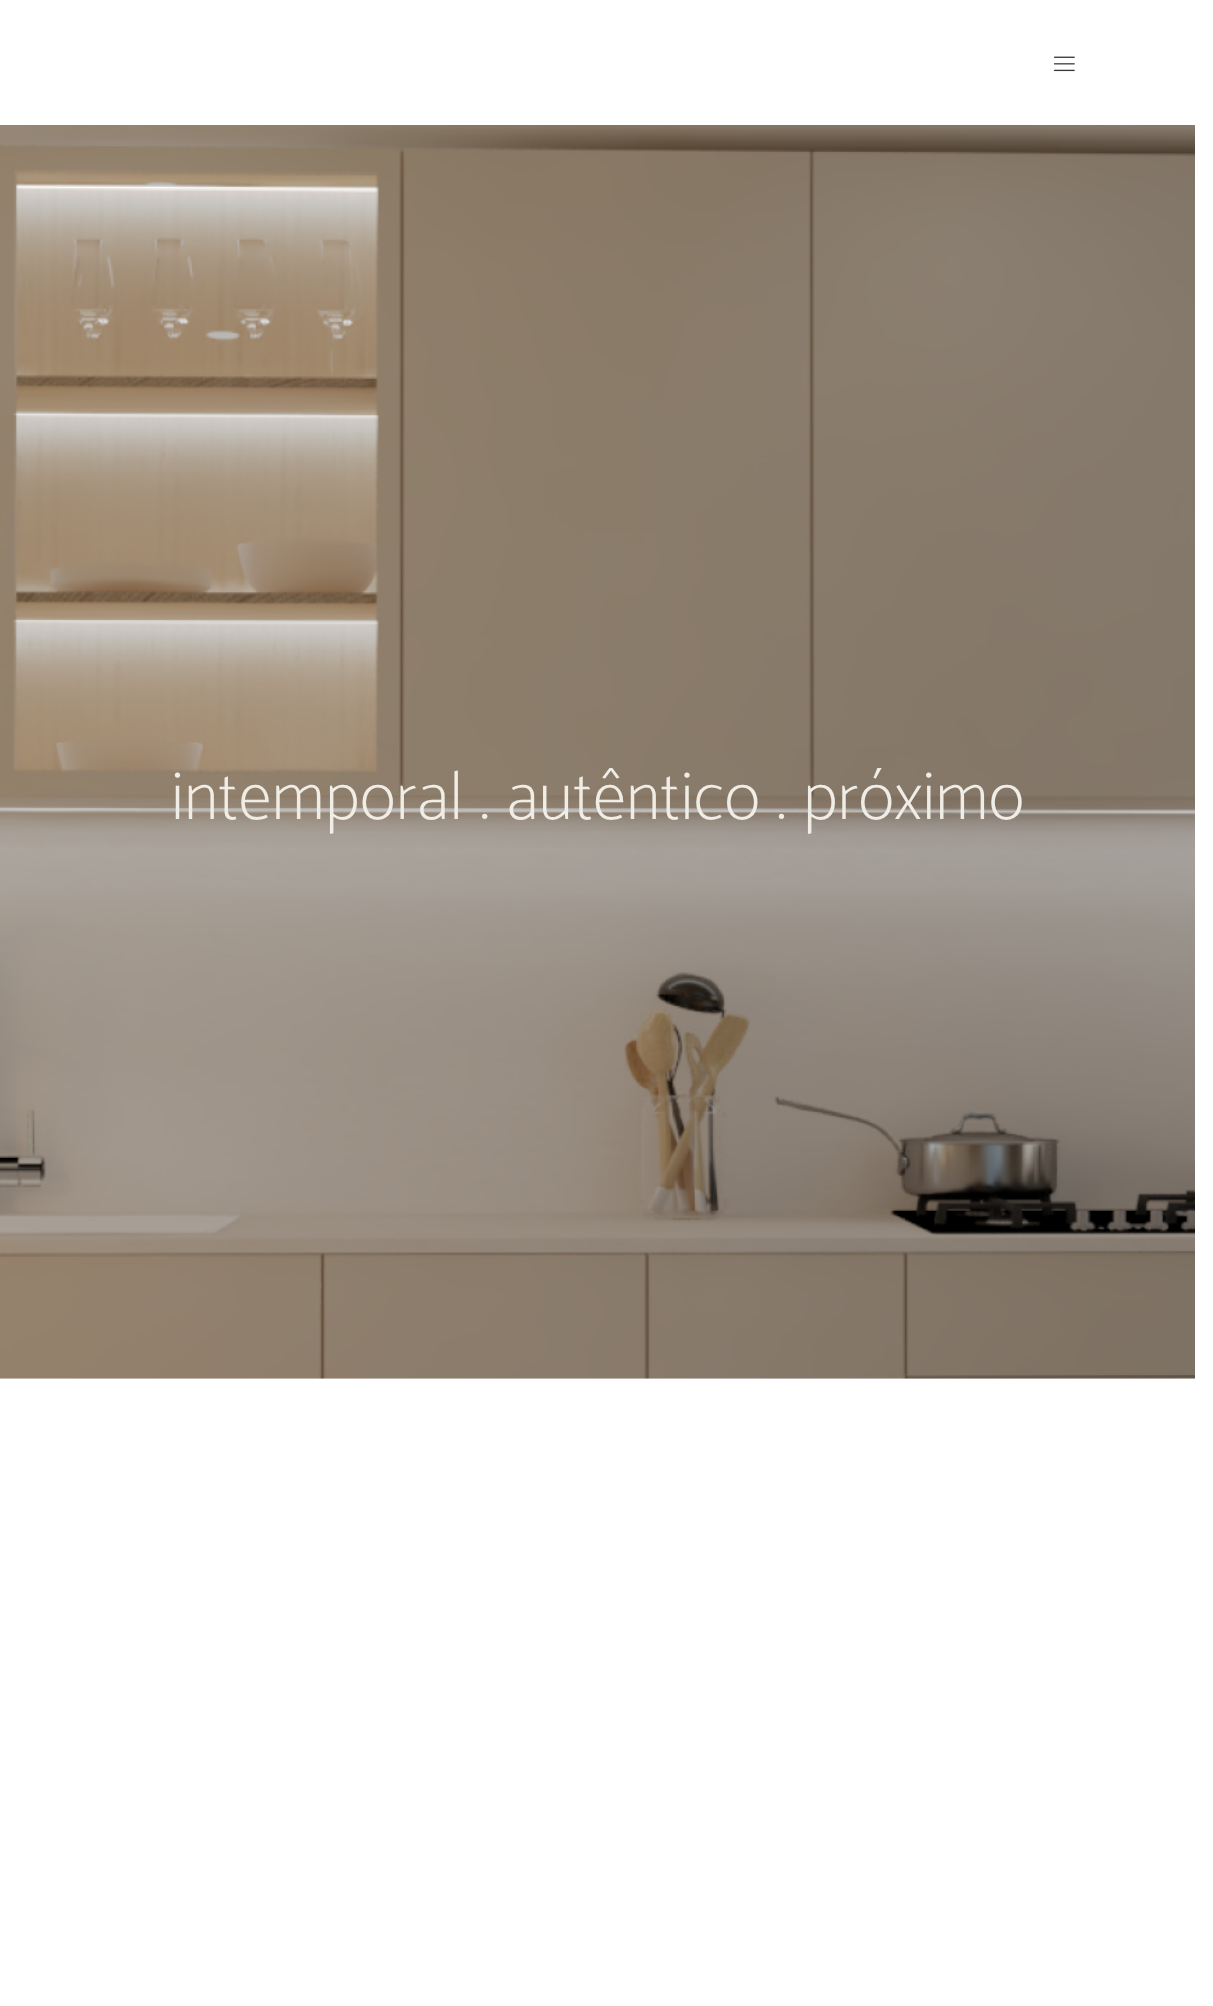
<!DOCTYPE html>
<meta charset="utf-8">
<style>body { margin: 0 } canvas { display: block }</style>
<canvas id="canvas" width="1213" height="2006"></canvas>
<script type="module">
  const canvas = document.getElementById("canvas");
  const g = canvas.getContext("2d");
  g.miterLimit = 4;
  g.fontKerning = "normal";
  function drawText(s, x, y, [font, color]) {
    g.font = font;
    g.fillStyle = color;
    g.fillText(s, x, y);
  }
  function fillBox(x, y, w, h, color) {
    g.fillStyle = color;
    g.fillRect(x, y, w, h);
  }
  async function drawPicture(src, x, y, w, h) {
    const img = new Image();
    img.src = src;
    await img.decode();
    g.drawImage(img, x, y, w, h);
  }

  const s1 = ["100 68.75px Catamaran", "#F0EDE6"];

  fillBox(0, 0, 1213, 2006, "#FFFFFF");
  await drawPicture("pic1.png", 1053, 56, 22, 16);
  await drawPicture("pic2.png", 0, 125, 1195, 1254);
  drawText("intemporal . autêntico . próximo", 171, 819, s1);
</script>
